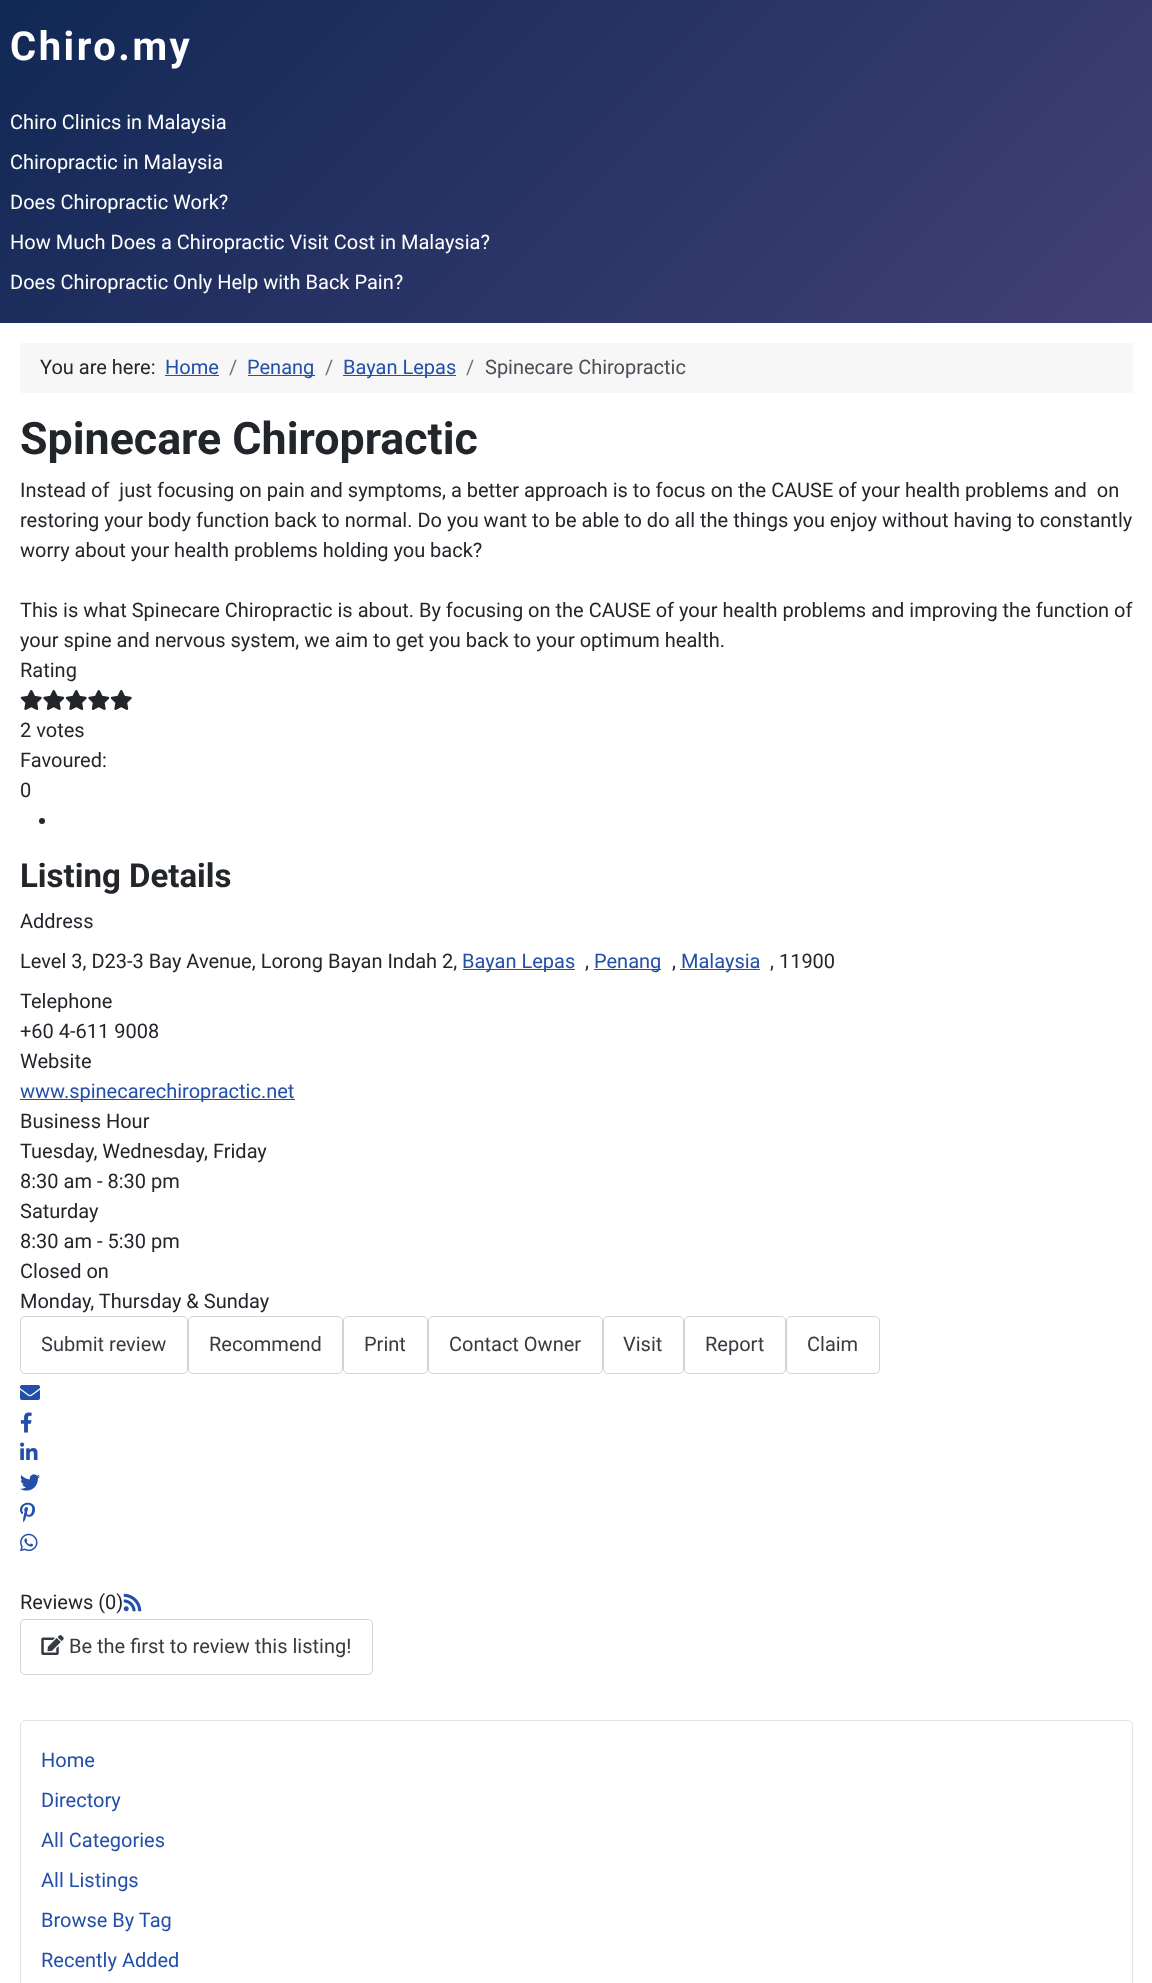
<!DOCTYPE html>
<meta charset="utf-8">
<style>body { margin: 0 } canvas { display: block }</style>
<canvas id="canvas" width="1152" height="1983"></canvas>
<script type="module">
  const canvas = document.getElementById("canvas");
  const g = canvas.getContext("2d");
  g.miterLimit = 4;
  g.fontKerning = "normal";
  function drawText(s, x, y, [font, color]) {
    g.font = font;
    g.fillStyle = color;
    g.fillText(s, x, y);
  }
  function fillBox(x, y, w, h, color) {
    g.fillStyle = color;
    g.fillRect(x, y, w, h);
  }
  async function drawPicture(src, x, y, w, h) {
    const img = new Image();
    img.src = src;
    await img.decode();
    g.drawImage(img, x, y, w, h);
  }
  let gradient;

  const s1 = ["bold 40px Roboto", "#FFFFFF"];
  const s2 = ["20px Roboto", "#FFFFFF"];
  const s3 = ["20px Roboto", "#22262A"];
  const s4 = ["20px Roboto", "#224FAA"];
  const s5 = ["20px Roboto", "#6D757E"];
  const s6 = ["20px Roboto", "#484F56"];
  const s7 = ["bold 44.75px Roboto", "#22262A"];
  const s8 = ["bold 33px Roboto", "#22262A"];
  const s9 = ["20px Roboto", "#353B41"];

  fillBox(0, 0, 1152, 1983, "#FFFFFF");
  gradient = g.createLinearGradient(207, -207, 945, 530);
  gradient.addColorStop(0, "#112855");
  gradient.addColorStop(1, "#424077");
  g.fillStyle = gradient;
  g.fillRect(0, 0, 1152, 323);
  g.letterSpacing = "2.5px";
  drawText("Chiro.my", 10, 60, s1);
  g.letterSpacing = "0px";
  drawText("Chiro Clinics in Malaysia", 10, 129, s2);
  drawText("Chiropractic in Malaysia", 10, 169, s2);
  drawText("Does Chiropractic Work?", 10, 209, s2);
  drawText("How Much Does a Chiropractic Visit Cost in Malaysia?", 10, 249, s2);
  drawText("Does Chiropractic Only Help with Back Pain?", 10, 289, s2);
  fillBox(20, 343, 1113, 50, "#F7F7F7");
  drawText("You are here:", 40, 374, s3);
  drawText("Home", 165, 374, s4);
  fillBox(165, 375, 54, 1, "#224FAA");
  drawText("/", 229, 374, s5);
  fillBox(248, 375, 67, 1, "#224FAA");
  drawText("Penang", 247, 374, s4);
  drawText("/", 325, 374, s5);
  fillBox(343, 375, 113, 1, "#224FAA");
  drawText("Bayan Lepas", 343, 374, s4);
  drawText("/", 466, 374, s5);
  drawText("Spinecare Chiropractic", 485, 374, s6);
  drawText("Spinecare Chiropractic", 20, 454, s7);
  drawText("Instead of  just focusing on pain and symptoms, a better approach is to focus on the CAUSE of your health problems and  on", 20, 497, s3);
  drawText("restoring your body function back to normal. Do you want to be able to do all the things you enjoy without having to constantly", 20, 527, s3);
  drawText("worry about your health problems holding you back?", 20, 557, s3);
  drawText("This is what Spinecare Chiropractic is about. By focusing on the CAUSE of your health problems and improving the function of", 20, 617, s3);
  drawText("your spine and nervous system, we aim to get you back to your optimum health.", 20, 647, s3);
  drawText("Rating", 20, 677, s3);
  await drawPicture("pic1.png", 20, 690, 22, 20);
  await drawPicture("pic2.png", 43, 690, 22, 20);
  await drawPicture("pic1.png", 65, 690, 22, 20);
  await drawPicture("pic2.png", 88, 690, 22, 20);
  await drawPicture("pic1.png", 110, 690, 22, 20);
  drawText("2 votes", 20, 737, s3);
  drawText("Favoured:", 20, 767, s3);
  drawText("0", 20, 797, s3);
  g.beginPath();
  g.arc(42, 821, 3, 0, Math.PI * 2);
  g.fill();
  drawText("Listing Details", 20, 887, s8);
  drawText("Address", 20, 928, s3);
  drawText("Level 3, D23-3 Bay Avenue, Lorong Bayan Indah 2,", 20, 968, s3);
  fillBox(463, 969, 112, 1, "#224FAA");
  drawText("Bayan Lepas", 462, 968, s4);
  drawText(",", 585, 968, s3);
  fillBox(594, 969, 67, 1, "#224FAA");
  drawText("Penang", 594, 968, s4);
  drawText(",", 672, 968, s3);
  fillBox(680, 969, 80, 1, "#224FAA");
  drawText("Malaysia", 681, 968, s4);
  drawText(", 11900", 770, 968, s3);
  drawText("Telephone", 20, 1008, s3);
  drawText("+60 4-611 9008", 20, 1038, s3);
  drawText("Website", 20, 1068, s3);
  fillBox(20, 1099, 275, 1, "#224FAA");
  drawText("www.spinecarechiropractic.net", 20, 1098, s4);
  drawText("Business Hour", 20, 1128, s3);
  drawText("Tuesday, Wednesday, Friday", 20, 1158, s3);
  drawText("8:30 am - 8:30 pm", 20, 1188, s3);
  drawText("Saturday", 20, 1218, s3);
  drawText("8:30 am - 5:30 pm", 20, 1248, s3);
  drawText("Closed on", 20, 1278, s3);
  drawText("Monday, Thursday & Sunday", 20, 1308, s3);
  g.beginPath();
  g.roundRect(20.5, 1316.5, 167, 57, 4.5);
  g.strokeStyle = "#CED4DA";
  g.stroke();
  drawText("Submit review", 41, 1351, s9);
  g.beginPath();
  g.roundRect(188.5, 1316.5, 154, 57, 4.5);
  g.stroke();
  drawText("Recommend", 209, 1351, s9);
  g.beginPath();
  g.roundRect(343.5, 1316.5, 84, 57, 4.5);
  g.stroke();
  drawText("Print", 364, 1351, s9);
  g.beginPath();
  g.roundRect(428.5, 1316.5, 174, 57, 4.5);
  g.stroke();
  drawText("Contact Owner", 449, 1351, s9);
  g.beginPath();
  g.roundRect(603.5, 1316.5, 80, 57, 4.5);
  g.stroke();
  drawText("Visit", 623, 1351, s9);
  g.beginPath();
  g.roundRect(684.5, 1316.5, 101, 57, 4.5);
  g.stroke();
  drawText("Report", 705, 1351, s9);
  g.beginPath();
  g.roundRect(786.5, 1316.5, 93, 57, 4.5);
  g.stroke();
  drawText("Claim", 807, 1351, s9);
  await drawPicture("pic3.png", 20, 1385, 20, 15);
  await drawPicture("pic4.png", 20, 1412, 12, 21);
  await drawPicture("pic5.png", 20, 1442, 18, 18);
  await drawPicture("pic6.png", 20, 1474, 20, 17);
  await drawPicture("pic7.png", 20, 1502, 15, 21);
  await drawPicture("pic8.png", 20, 1533, 18, 19);
  drawText("Reviews (0)", 20, 1609, s3);
  await drawPicture("pic9.png", 123, 1593, 19, 19);
  g.beginPath();
  g.roundRect(20.5, 1619.5, 352, 55, 4.5);
  g.stroke();
  await drawPicture("pic10.png", 41, 1635, 23, 20);
  drawText("Be the first to review this listing!", 69, 1653, s9);
  g.beginPath();
  g.roundRect(20.5, 1720.5, 1112, 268, 4.5);
  g.strokeStyle = "#DFE3E7";
  g.stroke();
  drawText("Home", 41, 1767, s4);
  drawText("Directory", 41, 1807, s4);
  drawText("All Categories", 41, 1847, s4);
  drawText("All Listings", 41, 1887, s4);
  drawText("Browse By Tag", 41, 1927, s4);
  drawText("Recently Added", 41, 1967, s4);
</script>
